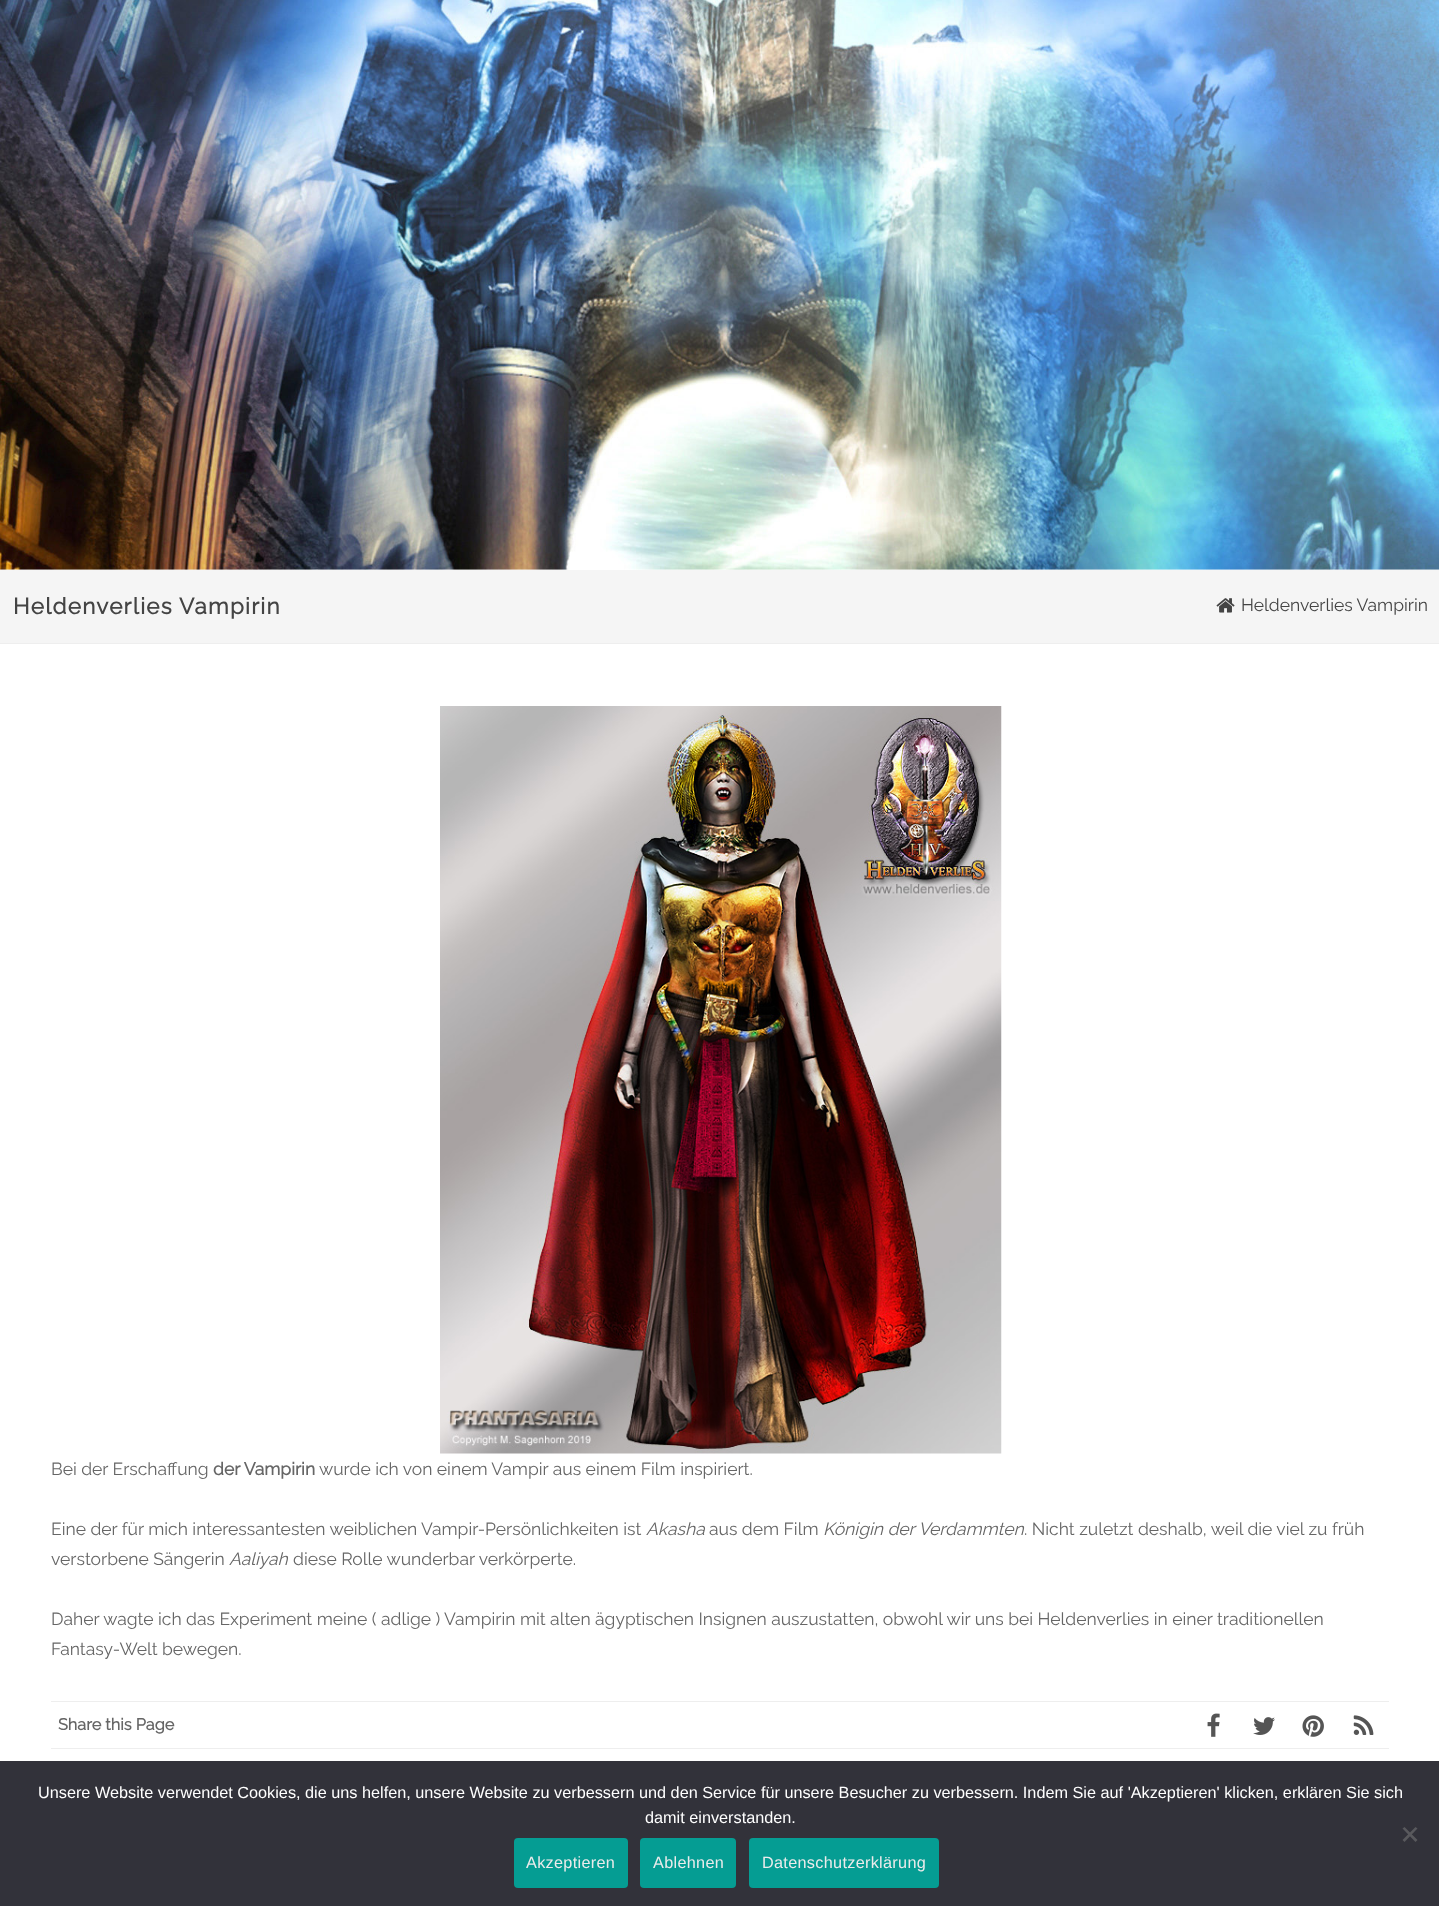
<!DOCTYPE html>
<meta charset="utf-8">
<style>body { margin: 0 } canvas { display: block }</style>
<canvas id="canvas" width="1439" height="1906"></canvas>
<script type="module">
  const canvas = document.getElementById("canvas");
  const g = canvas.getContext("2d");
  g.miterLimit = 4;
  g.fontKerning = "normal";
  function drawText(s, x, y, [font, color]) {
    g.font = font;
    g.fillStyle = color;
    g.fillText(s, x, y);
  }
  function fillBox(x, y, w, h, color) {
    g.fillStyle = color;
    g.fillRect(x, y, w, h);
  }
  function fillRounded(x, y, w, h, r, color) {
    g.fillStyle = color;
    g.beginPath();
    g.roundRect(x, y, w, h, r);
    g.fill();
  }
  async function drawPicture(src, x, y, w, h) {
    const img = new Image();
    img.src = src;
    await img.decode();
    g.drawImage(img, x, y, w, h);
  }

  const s1 = ["bold 22.5px Raleway", "#444444"];
  const s2 = ["17.5px Raleway", "#444444"];
  const s3 = ["17.5px Raleway", "#666666"];
  const s4 = ["bold 17.5px Raleway", "#666666"];
  const s5 = ["italic 17.5px Raleway", "#666666"];
  const s6 = ["bold 16.25px Raleway", "#666666"];
  const s7 = ["16.25px Liberation Sans", "#FFFFFF"];
  const s8 = ["16.25px Liberation Sans", "#EBEBEB"];

  fillBox(0, 0, 1439, 1906, "#FFFFFF");
  await drawPicture("pic1.png", 0, 0, 1439, 570);
  fillBox(0, 570, 1439, 73, "#F5F5F5");
  fillBox(0, 643, 1439, 1, "#EEEEEE");
  g.letterSpacing = "1.25px";
  drawText("Heldenverlies Vampirin", 13, 614, s1);
  await drawPicture("pic2.png", 1216, 598, 19, 15);
  g.letterSpacing = "0px";
  drawText("Heldenverlies Vampirin", 1241, 611, s2);
  await drawPicture("pic3.png", 440, 706, 562, 748);
  drawText("Bei der Erschaffung", 51, 1475, s3);
  drawText("der Vampirin", 213, 1475, s4);
  drawText("wurde ich von einem Vampir aus einem Film inspiriert.", 319, 1475, s3);
  drawText("Eine der für mich interessantesten weiblichen Vampir-Persönlichkeiten ist", 51, 1535, s3);
  drawText("Akasha", 646, 1535, s5);
  drawText("aus dem Film", 709, 1535, s3);
  drawText("Königin der Verdammten", 823, 1535, s5);
  drawText(". Nicht zuletzt deshalb, weil die viel zu früh", 1024, 1535, s3);
  drawText("verstorbene Sängerin", 51, 1565, s3);
  drawText("Aaliyah", 229, 1565, s5);
  drawText("diese Rolle wunderbar verkörperte.", 293, 1565, s3);
  drawText("Daher wagte ich das Experiment meine ( adlige ) Vampirin mit alten ägyptischen Insignen auszustatten, obwohl wir uns bei Heldenverlies in einer traditionellen", 51, 1625, s3);
  drawText("Fantasy-Welt bewegen.", 51, 1655, s3);
  fillBox(51, 1701, 1338, 1, "#EEEEEE");
  fillBox(51, 1748, 1338, 1, "#EEEEEE");
  drawText("Share this Page", 58, 1730, s6);
  await drawPicture("pic4.png", 1207, 1713, 13, 24);
  await drawPicture("pic5.png", 1253, 1717, 22, 18);
  await drawPicture("pic6.png", 1302, 1715, 22, 22);
  await drawPicture("pic7.png", 1353, 1715, 21, 20);
  fillBox(0, 1761, 1439, 145, "#32323A");
  drawText("Unsere Website verwendet Cookies, die uns helfen, unsere Website zu verbessern und den Service für unsere Besucher zu verbessern. Indem Sie auf 'Akzeptieren' klicken, erklären Sie sich", 38, 1798, s7);
  drawText("damit einverstanden.", 645, 1823, s7);
  g.fillStyle = "#59595D";
  g.beginPath();
  g.moveTo(1415.5, 1827);
  g.lineTo(1417.5, 1828.5);
  g.lineTo(1404.5, 1842);
  g.lineTo(1402.5, 1840);
  g.closePath();
  g.fill();
  g.beginPath();
  g.moveTo(1402.5, 1828.5);
  g.lineTo(1404.5, 1827);
  g.lineTo(1417.5, 1840);
  g.lineTo(1415.5, 1842);
  g.closePath();
  g.fill();
  fillRounded(514, 1838, 114, 50, 4, "#059D93");
  g.letterSpacing = "0.3px";
  drawText("Akzeptieren", 526, 1868, s8);
  fillRounded(640, 1838, 96, 50, 4, "#059D93");
  drawText("Ablehnen", 653, 1868, s8);
  fillRounded(749, 1838, 190, 50, 4, "#059D93");
  drawText("Datenschutzerklärung", 762, 1868, s8);
</script>
